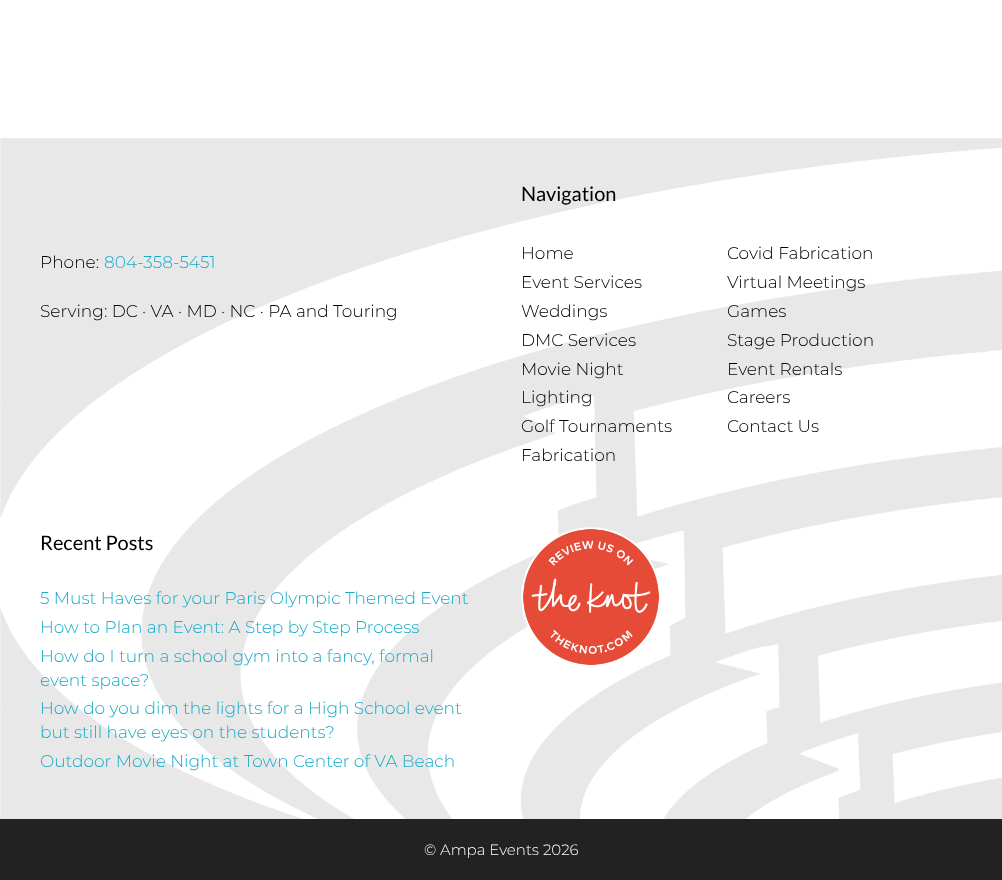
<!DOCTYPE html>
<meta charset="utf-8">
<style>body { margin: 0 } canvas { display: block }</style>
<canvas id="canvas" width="1002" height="880"></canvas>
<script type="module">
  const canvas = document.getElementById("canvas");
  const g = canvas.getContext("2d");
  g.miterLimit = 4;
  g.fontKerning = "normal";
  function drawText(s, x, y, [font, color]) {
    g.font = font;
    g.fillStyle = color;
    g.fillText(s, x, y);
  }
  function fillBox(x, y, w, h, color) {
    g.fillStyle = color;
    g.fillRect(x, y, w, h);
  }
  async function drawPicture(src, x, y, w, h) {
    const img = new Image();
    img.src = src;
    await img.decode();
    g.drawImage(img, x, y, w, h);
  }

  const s1 = ["300 17px Montserrat", "#000000"];
  const s2 = ["300 17px Montserrat", "#18ABC8"];
  const s3 = ["20px Lato", "#000000"];
  const s4 = ["300 15px Montserrat", "#FFFFFF"];

  fillBox(0, 0, 1002, 880, "#FFFFFF");
  await drawPicture("pic1.png", 0, 138, 1002, 681);
  drawText("Phone:", 40, 268, s1);
  drawText("804-358-5451", 104, 268, s2);
  drawText("Serving: DC · VA · MD · NC · PA and Touring", 40, 317, s1);
  drawText("Navigation", 521, 201, s3);
  drawText("Home", 521, 259, s1);
  drawText("Event Services", 521, 288, s1);
  drawText("Weddings", 521, 317, s1);
  drawText("DMC Services", 521, 346, s1);
  drawText("Movie Night", 521, 375, s1);
  drawText("Lighting", 521, 403, s1);
  drawText("Golf Tournaments", 521, 432, s1);
  drawText("Fabrication", 521, 461, s1);
  drawText("Covid Fabrication", 727, 259, s1);
  drawText("Virtual Meetings", 727, 288, s1);
  drawText("Games", 727, 317, s1);
  drawText("Stage Production", 727, 346, s1);
  drawText("Event Rentals", 727, 375, s1);
  drawText("Careers", 727, 403, s1);
  drawText("Contact Us", 727, 432, s1);
  drawText("Recent Posts", 40, 550, s3);
  drawText("5 Must Haves for your Paris Olympic Themed Event", 40, 604, s2);
  drawText("How to Plan an Event: A Step by Step Process", 40, 633, s2);
  drawText("How do I turn a school gym into a fancy, formal", 40, 662, s2);
  drawText("event space?", 40, 686, s2);
  drawText("How do you dim the lights for a High School event", 40, 714, s2);
  drawText("but still have eyes on the students?", 40, 738, s2);
  drawText("Outdoor Movie Night at Town Center of VA Beach", 40, 767, s2);
  await drawPicture("pic2.png", 521, 527, 138, 138);
  fillBox(0, 819, 1002, 61, "#222222");
  drawText("© Ampa Events 2026", 424, 855, s4);
</script>
